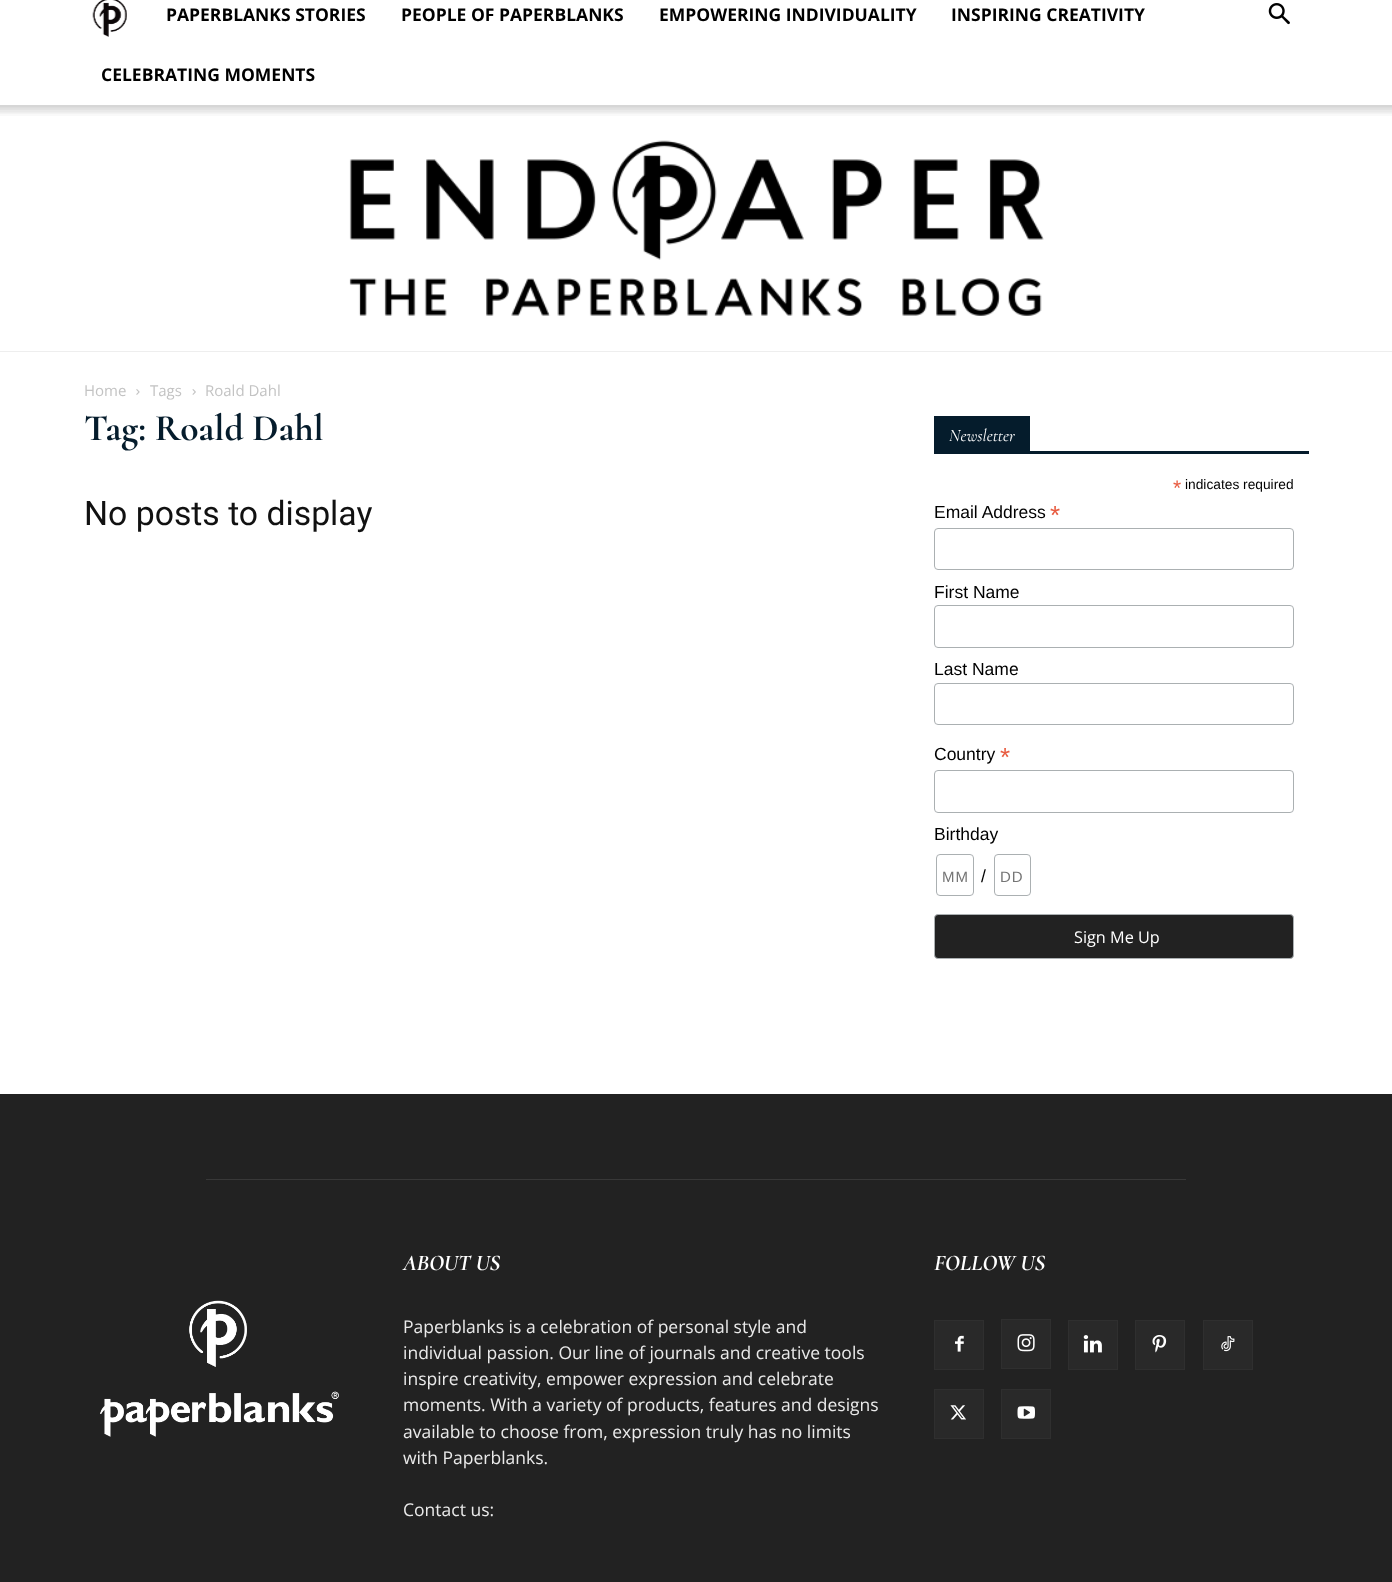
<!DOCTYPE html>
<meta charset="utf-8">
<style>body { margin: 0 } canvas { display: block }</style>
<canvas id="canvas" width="1392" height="1582"></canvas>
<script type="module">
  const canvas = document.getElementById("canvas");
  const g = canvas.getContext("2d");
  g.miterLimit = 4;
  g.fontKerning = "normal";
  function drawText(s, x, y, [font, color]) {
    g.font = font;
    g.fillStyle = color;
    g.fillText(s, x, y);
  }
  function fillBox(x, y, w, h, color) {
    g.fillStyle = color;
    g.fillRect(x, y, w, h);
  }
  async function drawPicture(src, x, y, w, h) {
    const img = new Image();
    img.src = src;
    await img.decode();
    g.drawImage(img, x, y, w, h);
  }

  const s1 = ["bold 17.5px Open Sans", "#000000"];
  const s2 = ["15px Open Sans", "#C3C3C3"];
  const s3 = ["bold 37.5px Cormorant", "#051C2C"];
  const s4 = ["33.75px Roboto", "#111111"];
  const s5 = ["italic 17.5px Cormorant", "#FFFFFF"];
  const s6 = ["21px Liberation Sans", "#E85C41"];
  const s7 = ["13.75px Liberation Sans", "#000000"];
  const s8 = ["17.5px Liberation Sans", "#000000"];
  const s9 = ["26px Liberation Sans", "#E85C41"];
  const s10 = ["15px Liberation Sans", "#757575"];
  const s11 = ["16.25px Open Sans", "#FFFFFF"];
  const s12 = ["italic bold 22.5px Cormorant", "#FFFFFF"];
  const s13 = ["17.5px Open Sans", "#EAEAEA"];

  fillBox(0, 0, 1392, 1582, "#FFFFFF");
  await drawPicture("pic1.png", 92, 0, 35, 37);
  drawText("PAPERBLANKS STORIES", 166, 21, s1);
  drawText("PEOPLE OF PAPERBLANKS", 401, 21, s1);
  drawText("EMPOWERING INDIVIDUALITY", 659, 21, s1);
  drawText("INSPIRING CREATIVITY", 951, 21, s1);
  drawText("CELEBRATING MOMENTS", 101, 81, s1);
  await drawPicture("pic2.png", 1268, 3, 22, 22);
  await drawPicture("pic3.png", 0, 105, 1392, 11);
  await drawPicture("pic4.png", 0, 105, 1392, 9);
  fillBox(0, 351, 1392, 1, "#EEEEEE");
  await drawPicture("pic5.png", 349, 140, 695, 176);
  drawText("Home", 84, 396, s2);
  await drawPicture("pic6.png", 136, 389, 4, 6);
  drawText("Tags", 150, 396, s2);
  await drawPicture("pic7.png", 192, 389, 4, 6);
  drawText("Roald Dahl", 205, 396, s2);
  drawText("Tag: Roald Dahl", 84, 440, s3);
  drawText("No posts to display", 84, 525, s4);
  fillBox(934, 451, 375, 3, "#051C2C");
  fillBox(934, 416, 96, 35, "#051C2C");
  drawText("Newsletter", 949, 441, s5);
  drawText("*", 1173, 495, s6);
  drawText("indicates required", 1185, 489, s7);
  drawText("Email Address", 934, 518, s8);
  drawText("*", 1050, 524, s9);
  g.beginPath();
  g.roundRect(934.5, 528.5, 359, 41, 3.5);
  g.strokeStyle = "#ABB0B2";
  g.stroke();
  drawText("First Name", 934, 598, s8);
  g.beginPath();
  g.roundRect(934.5, 605.5, 359, 42, 3.5);
  g.stroke();
  drawText("Last Name", 934, 675, s8);
  g.beginPath();
  g.roundRect(934.5, 683.5, 359, 41, 3.5);
  g.stroke();
  drawText("Country", 934, 760, s8);
  drawText("*", 1000, 766, s9);
  g.beginPath();
  g.roundRect(934.5, 770.5, 359, 42, 3.5);
  g.stroke();
  drawText("Birthday", 934, 840, s8);
  g.beginPath();
  g.roundRect(936.5, 854.5, 37, 41, 3.5);
  g.stroke();
  g.letterSpacing = "1px";
  drawText("MM", 942, 882, s10);
  g.letterSpacing = "0px";
  drawText("/", 981, 882, s8);
  g.beginPath();
  g.roundRect(994.5, 854.5, 36, 41, 3.5);
  g.stroke();
  g.letterSpacing = "1px";
  drawText("DD", 1000, 882, s10);
  g.fillStyle = "#222222";
  g.beginPath();
  g.roundRect(934.5, 914.5, 359, 44, 3.5);
  g.fill();
  g.stroke();
  g.letterSpacing = "0px";
  drawText("Sign Me Up", 1074, 943, s11);
  fillBox(0, 1094, 1392, 488, "#222222");
  fillBox(206, 1179, 980, 1, "#383838");
  drawText("ABOUT US", 403, 1270, s12);
  drawText("Paperblanks is a celebration of personal style and", 403, 1333, s13);
  drawText("individual passion. Our line of journals and creative tools", 403, 1359, s13);
  drawText("inspire creativity, empower expression and celebrate", 403, 1385, s13);
  drawText("moments. With a variety of products, features and designs", 403, 1411, s13);
  drawText("available to choose from, expression truly has no limits", 403, 1438, s13);
  drawText("with Paperblanks.", 403, 1464, s13);
  drawText("Contact us:", 403, 1516, s13);
  drawText("FOLLOW US", 934, 1270, s12);
  fillBox(935, 1321, 48, 48, "#292929");
  await drawPicture("pic8.png", 955, 1335, 9, 17);
  g.strokeStyle = "#2F2F2F";
  g.strokeRect(934.5, 1320.5, 49, 49);
  fillBox(1002, 1320, 48, 48, "#292929");
  await drawPicture("pic9.png", 1017, 1334, 18, 18);
  g.strokeRect(1001.5, 1319.5, 49, 49);
  fillBox(1069, 1321, 48, 48, "#292929");
  await drawPicture("pic10.png", 1083, 1335, 19, 18);
  g.strokeRect(1068.5, 1320.5, 49, 49);
  fillBox(1136, 1321, 48, 48, "#292929");
  await drawPicture("pic11.png", 1152, 1335, 15, 18);
  g.strokeRect(1135.5, 1320.5, 49, 49);
  fillBox(1204, 1321, 48, 48, "#292929");
  await drawPicture("pic12.png", 1221, 1336, 14, 16);
  g.strokeRect(1203.5, 1320.5, 49, 49);
  fillBox(935, 1390, 48, 48, "#292929");
  await drawPicture("pic13.png", 950, 1405, 16, 15);
  g.strokeRect(934.5, 1389.5, 49, 49);
  fillBox(1002, 1390, 48, 48, "#292929");
  await drawPicture("pic14.png", 1017, 1406, 18, 13);
  g.strokeRect(1001.5, 1389.5, 49, 49);
  await drawPicture("pic15.png", 100, 1300, 239, 137);
</script>
